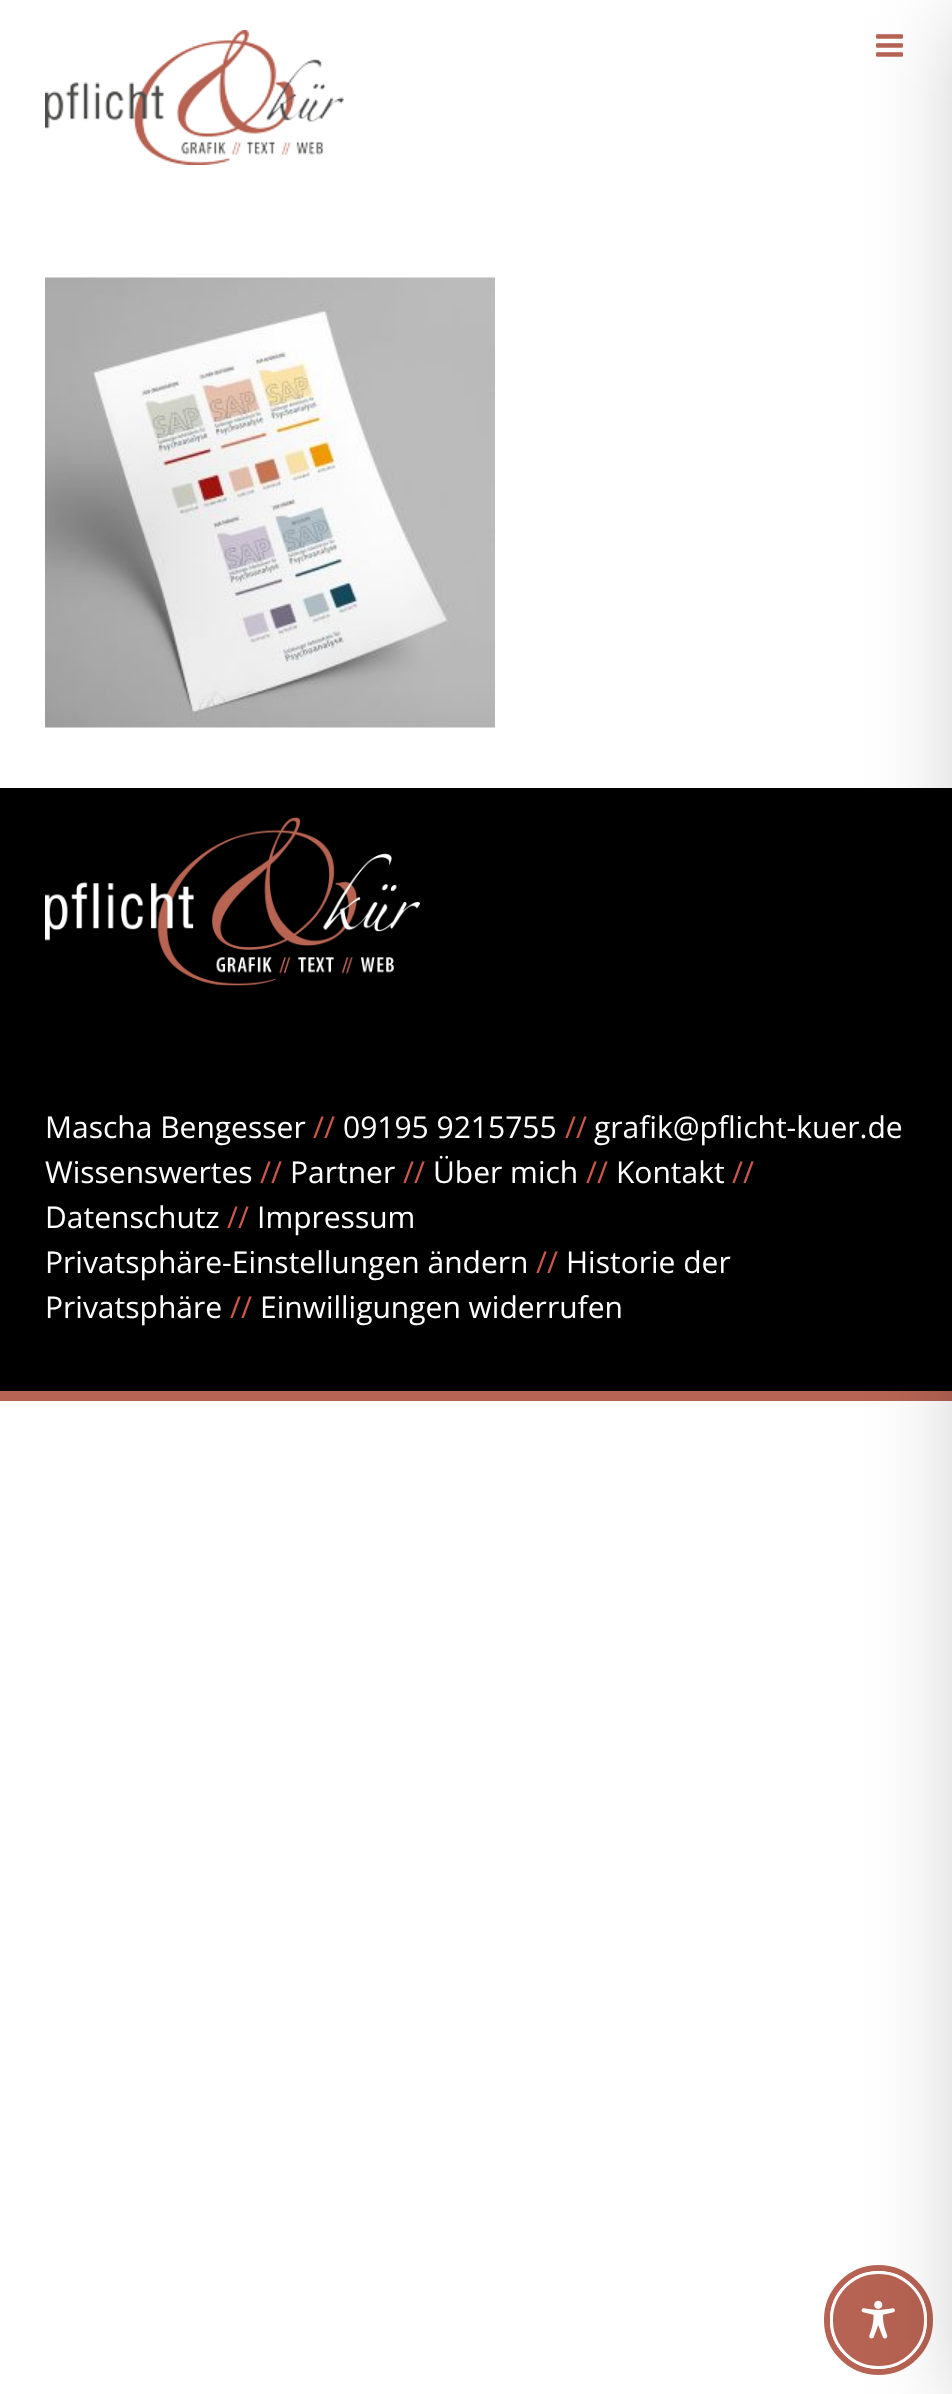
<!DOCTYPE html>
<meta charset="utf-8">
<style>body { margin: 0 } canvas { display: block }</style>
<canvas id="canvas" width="952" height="2394"></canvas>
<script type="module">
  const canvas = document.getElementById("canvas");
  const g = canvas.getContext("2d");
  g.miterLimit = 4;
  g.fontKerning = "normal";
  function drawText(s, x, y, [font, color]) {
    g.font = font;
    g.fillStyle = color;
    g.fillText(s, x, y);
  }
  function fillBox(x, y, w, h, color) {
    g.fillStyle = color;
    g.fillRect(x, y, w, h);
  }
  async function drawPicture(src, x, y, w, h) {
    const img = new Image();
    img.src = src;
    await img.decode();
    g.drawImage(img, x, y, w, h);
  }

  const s1 = ["30px Open Sans", "#FFFFFF"];
  const s2 = ["30px Open Sans", "#CC5847"];

  fillBox(0, 0, 952, 2394, "#FFFFFF");
  g.beginPath();
  g.roundRect(827, 2268, 103, 104, 51.5);
  g.strokeStyle = "#B76353";
  g.lineWidth = 6;
  g.stroke();
  g.fillStyle = "#B76353";
  g.beginPath();
  g.roundRect(831.5, 2272.5, 94, 95, 47);
  g.fill();
  g.strokeStyle = "#FFFFFF";
  g.lineWidth = 3;
  g.stroke();
  await drawPicture("pic1.png", 861, 2300, 34, 39);
  await drawPicture("pic3.png", 876, 34, 27, 23);
  fillBox(0, 1391, 952, 10, "#B76454");
  fillBox(0, 788, 952, 603, "#000000");
  g.fillStyle = "rgba(0, 0, 0, 0.2)";
  g.filter = "blur(45px)";
  g.beginPath();
  g.rect(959, 15, 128, 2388);
  g.fill();
  g.filter = "none";
  await drawPicture("pic2.png", 45, 30, 299, 135);
  await drawPicture("pic4.png", 45, 277, 450, 451);
  await drawPicture("pic5.png", 45, 817, 375, 169);
  drawText("Mascha Bengesser", 45, 1138, s1);
  drawText("//", 313, 1138, s2);
  drawText("09195 9215755", 343, 1138, s1);
  drawText("//", 565, 1138, s2);
  drawText("grafik@pflicht-kuer.de", 594, 1138, s1);
  drawText("Wissenswertes", 45, 1183, s1);
  drawText("//", 260, 1183, s2);
  drawText("Partner", 290, 1183, s1);
  drawText("//", 403, 1183, s2);
  drawText("Über mich", 433, 1183, s1);
  drawText("//", 586, 1183, s2);
  drawText("Kontakt", 616, 1183, s1);
  drawText("//", 732, 1183, s2);
  drawText("Datenschutz", 45, 1228, s1);
  drawText("//", 227, 1228, s2);
  drawText("Impressum", 257, 1228, s1);
  drawText("Privatsphäre-Einstellungen ändern", 45, 1273, s1);
  drawText("//", 536, 1273, s2);
  drawText("Historie der", 566, 1273, s1);
  drawText("Privatsphäre", 45, 1318, s1);
  drawText("//", 230, 1318, s2);
  drawText("Einwilligungen widerrufen", 260, 1318, s1);
</script>
